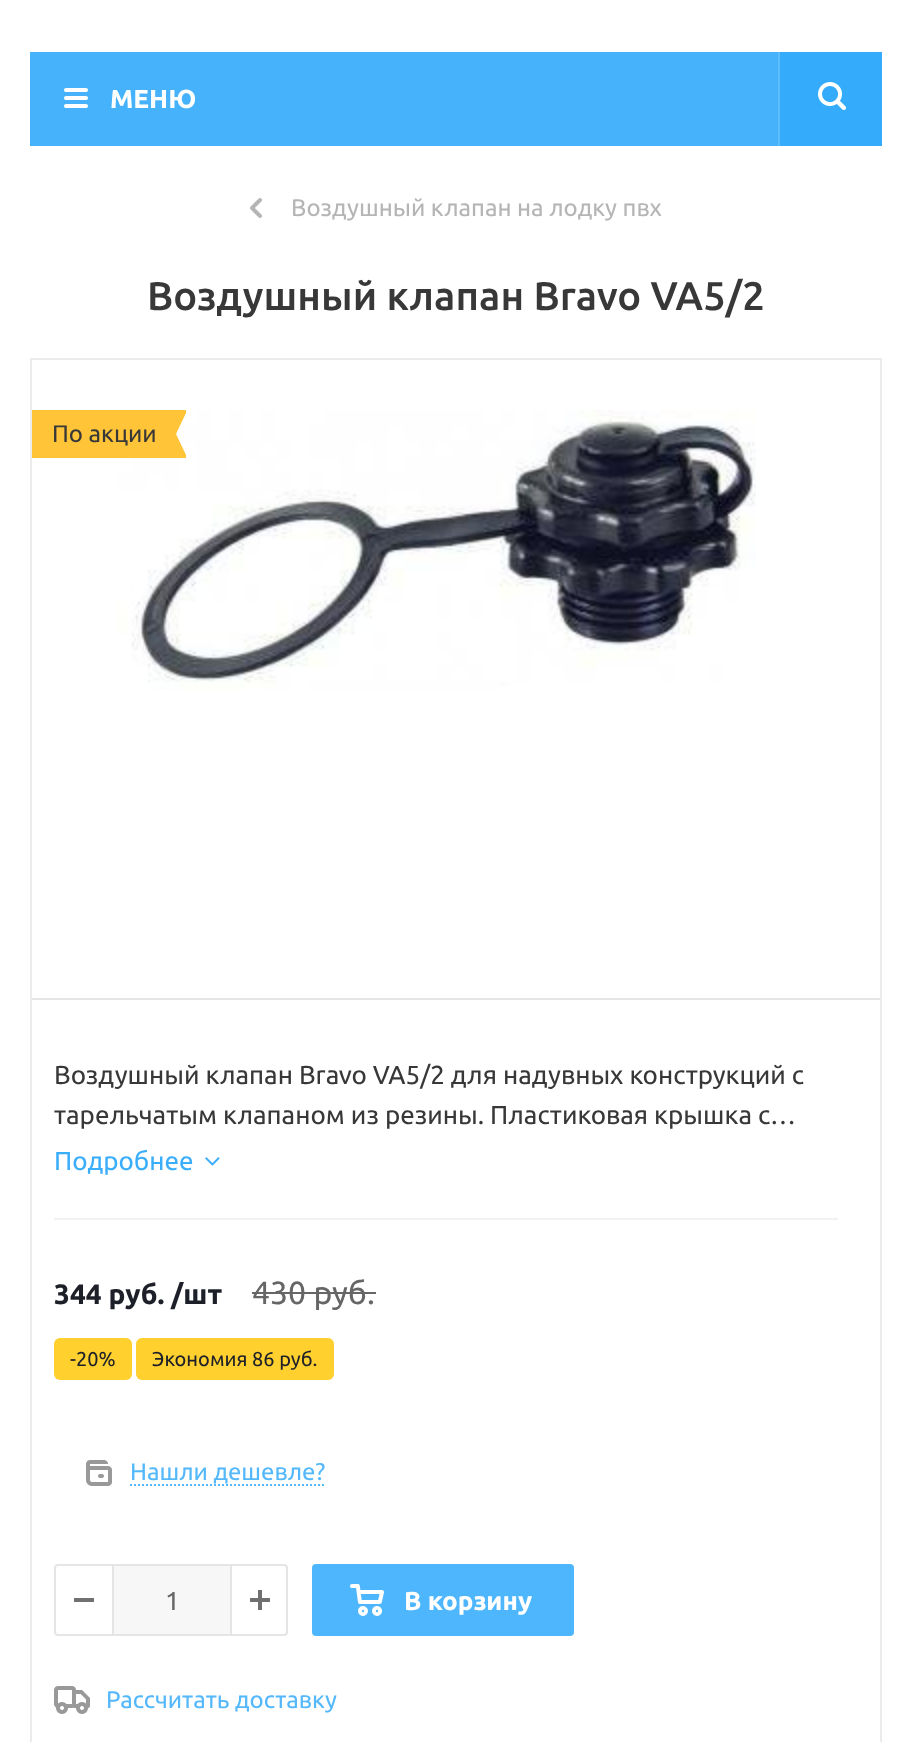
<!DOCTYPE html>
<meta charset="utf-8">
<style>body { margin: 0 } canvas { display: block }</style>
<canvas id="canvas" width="912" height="1742"></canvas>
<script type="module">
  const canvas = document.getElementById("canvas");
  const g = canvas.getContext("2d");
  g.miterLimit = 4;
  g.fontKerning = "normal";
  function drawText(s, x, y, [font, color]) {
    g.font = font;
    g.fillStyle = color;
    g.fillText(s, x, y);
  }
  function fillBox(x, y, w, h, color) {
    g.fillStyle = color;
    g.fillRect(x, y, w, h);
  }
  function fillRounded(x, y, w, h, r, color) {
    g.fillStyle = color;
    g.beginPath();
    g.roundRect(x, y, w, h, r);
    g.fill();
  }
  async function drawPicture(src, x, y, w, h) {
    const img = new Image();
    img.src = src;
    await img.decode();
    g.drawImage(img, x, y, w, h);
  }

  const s1 = ["bold 26px Ubuntu", "#FFFFFF"];
  const s2 = ["24px Ubuntu", "#B6B5B5"];
  const s3 = ["500 40px Ubuntu", "#383838"];
  const s4 = ["24px Ubuntu", "#383838"];
  const s5 = ["26px Ubuntu", "#383838"];
  const s6 = ["26px Ubuntu", "#3AAEFB"];
  const s7 = ["bold 28px Ubuntu", "#1D2029"];
  const s8 = ["32px Ubuntu", "#666666"];
  const s9 = ["20px Ubuntu", "#1D2029"];
  const s10 = ["24px Ubuntu", "#54B8FB"];
  const s11 = ["26px Ubuntu", "#666666"];

  fillBox(0, 0, 912, 1742, "#FFFFFF");
  fillBox(30, 52, 748, 94, "#45B2FB");
  await drawPicture("pic1.png", 64, 88, 24, 20);
  drawText("МЕНЮ", 110, 108, s1);
  fillBox(780, 52, 102, 94, "#35ACFB");
  fillBox(778, 52, 2, 94, "#5DBDFC");
  await drawPicture("pic2.png", 818, 82, 28, 28);
  await drawPicture("pic3.png", 250, 198, 12, 20);
  drawText("Воздушный клапан на лодку пвх", 291, 216, s2);
  drawText("Воздушный клапан Bravo VA5/2", 147, 310, s3);
  g.strokeStyle = "#EAEBEC";
  g.lineWidth = 2;
  g.strokeRect(31, 359, 850, 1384);
  await drawPicture("pic5.png", 116, 410, 640, 280);
  fillBox(32, 410, 144, 48, "#FFC438");
  drawText("По акции", 52, 442, s4);
  await drawPicture("pic4.png", 176, 410, 10, 48);
  fillBox(32, 998, 848, 2, "#E5E5E5");
  fillBox(54, 1218, 784, 2, "#F2F2F2");
  drawText("Воздушный клапан Bravo VA5/2 для надувных конструкций с", 54, 1084, s5);
  drawText("тарельчатым клапаном из резины. Пластиковая крышка с…", 54, 1124, s5);
  drawText("Подробнее", 54, 1170, s6);
  await drawPicture("pic6.png", 205, 1157, 15, 9);
  drawText("344 руб. /шт", 54, 1304, s7);
  drawText("430 руб.", 252, 1304, s8);
  fillBox(252, 1292, 124, 2, "#666666");
  fillRounded(54, 1338, 78, 42, 6, "#FFD02E");
  drawText("-20%", 70, 1366, s9);
  fillRounded(136, 1338, 198, 42, 6, "#FFD02E");
  drawText("Экономия 86 руб.", 152, 1366, s9);
  await drawPicture("pic7.png", 86, 1460, 26, 26);
  drawText("Нашли дешевле?", 130, 1480, s10);
  g.beginPath();
  g.moveTo(130, 1485);
  g.lineTo(326, 1485);
  g.strokeStyle = "#54B8FB";
  g.setLineDash([2, 2]);
  g.stroke();
  g.beginPath();
  g.roundRect(55, 1565, 232, 70, 3);
  g.strokeStyle = "#E5E5E5";
  g.setLineDash([]);
  g.stroke();
  fillBox(74, 1598, 20, 4, "#707070");
  fillBox(114, 1566, 116, 68, "#F7F7F7");
  fillBox(230, 1566, 2, 68, "#E5E5E5");
  fillBox(112, 1566, 2, 68, "#E5E5E5");
  drawText("1", 165, 1610, s11);
  await drawPicture("pic8.png", 250, 1590, 20, 20);
  fillRounded(312, 1564, 262, 72, 4, "#4EB6FC");
  await drawPicture("pic9.png", 350, 1584, 34, 32);
  drawText("В корзину", 404, 1610, s1);
  await drawPicture("pic10.png", 54, 1686, 36, 28);
  drawText("Рассчитать доставку", 106, 1708, s10);
</script>
